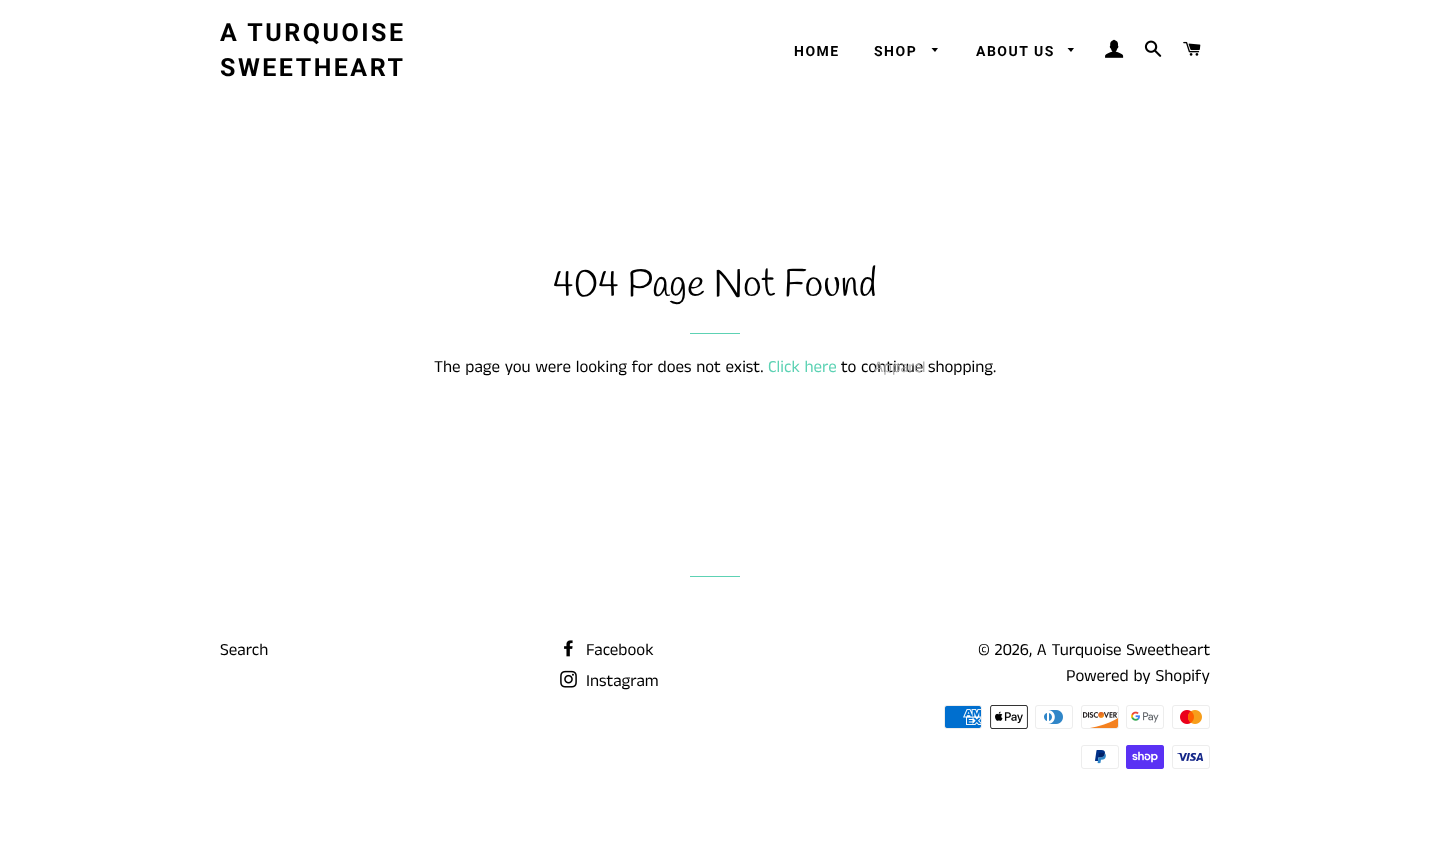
<!DOCTYPE html>
<meta charset="utf-8">
<style>body { margin: 0 } canvas { display: block }</style>
<canvas id="canvas" width="1430" height="863"></canvas>
<script type="module">
  const canvas = document.getElementById("canvas");
  const g = canvas.getContext("2d");
  g.miterLimit = 4;
  g.fontKerning = "normal";
  function drawText(s, x, y, [font, color]) {
    g.font = font;
    g.fillStyle = color;
    g.fillText(s, x, y);
  }
  function fillBox(x, y, w, h, color) {
    g.fillStyle = color;
    g.fillRect(x, y, w, h);
  }
  async function drawPicture(src, x, y, w, h) {
    const img = new Image();
    img.src = src;
    await img.decode();
    g.drawImage(img, x, y, w, h);
  }

  const s1 = ["bold 25px Roboto", "#000000"];
  const s2 = ["bold 14px Roboto", "#000000"];
  const s3 = ["17px Anek Tamil", "#000000"];
  const s4 = ["16px Anek Tamil", "#ACACAC"];
  const s5 = ["38px Handlee", "#000000"];
  const s6 = ["17px Anek Tamil", "#5DD2B4"];

  fillBox(0, 0, 1430, 863, "#FFFFFF");
  g.letterSpacing = "2.5px";
  drawText("A TURQUOISE", 220, 41, s1);
  drawText("SWEETHEART", 220, 76, s1);
  g.letterSpacing = "1.5px";
  drawText("HOME", 794, 56, s2);
  drawText("SHOP", 874, 56, s2);
  g.beginPath();
  g.moveTo(931.5, 48);
  g.lineTo(935, 52);
  g.lineTo(938, 48);
  g.closePath();
  g.fill();
  g.letterSpacing = "0px";
  drawText("to continue shopping.", 841, 372, s3);
  drawText("Apparel", 874, 372, s4);
  g.letterSpacing = "1.5px";
  drawText("ABOUT US", 976, 56, s2);
  g.beginPath();
  g.moveTo(1067.5, 48);
  g.lineTo(1071, 52);
  g.lineTo(1074, 48);
  g.closePath();
  g.fill();
  await drawPicture("pic1.png", 1105, 39, 19, 19);
  await drawPicture("pic2.png", 1144, 40, 18, 17);
  await drawPicture("pic3.png", 1183, 41, 18, 15);
  g.letterSpacing = "0px";
  drawText("404 Page Not Found", 553, 296, s5);
  fillBox(690, 333, 50, 1, "#5DD2B4");
  drawText("The page you were looking for does not exist.", 434, 372, s3);
  drawText("Click here", 768, 372, s6);
  fillBox(690, 576, 50, 1, "#5DD2B4");
  drawText("Search", 220, 655, s3);
  await drawPicture("pic4.png", 564, 640, 9, 17);
  drawText("Facebook", 586, 655, s3);
  await drawPicture("pic5.png", 560, 670, 17, 18);
  drawText("Instagram", 586, 686, s3);
  drawText("© 2026, A Turquoise Sweetheart", 978, 655, s3);
  drawText("Powered by Shopify", 1066, 681, s3);
  await drawPicture("pic6.png", 944, 705, 38, 24);
  await drawPicture("pic7.png", 990, 705, 38, 24);
  await drawPicture("pic8.png", 1035, 705, 38, 24);
  await drawPicture("pic9.png", 1081, 705, 38, 24);
  await drawPicture("pic10.png", 1126, 705, 38, 24);
  await drawPicture("pic11.png", 1172, 705, 38, 24);
  await drawPicture("pic12.png", 1081, 745, 38, 24);
  await drawPicture("pic13.png", 1126, 745, 38, 24);
  await drawPicture("pic14.png", 1172, 745, 38, 24);
</script>
